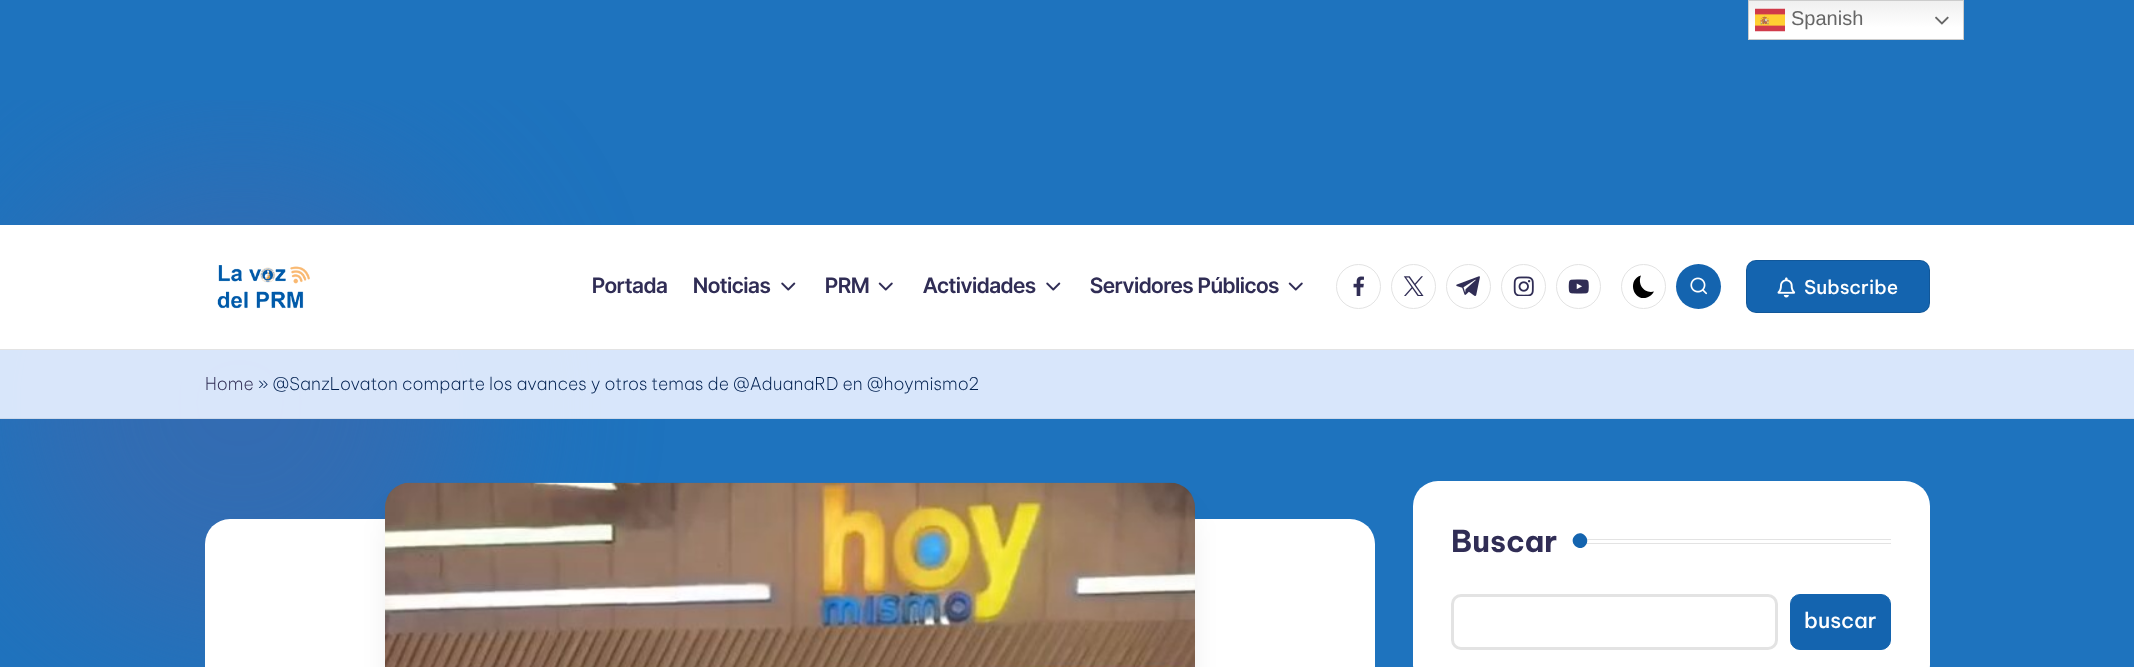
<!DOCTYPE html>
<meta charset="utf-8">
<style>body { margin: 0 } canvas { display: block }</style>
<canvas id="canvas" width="2134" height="667"></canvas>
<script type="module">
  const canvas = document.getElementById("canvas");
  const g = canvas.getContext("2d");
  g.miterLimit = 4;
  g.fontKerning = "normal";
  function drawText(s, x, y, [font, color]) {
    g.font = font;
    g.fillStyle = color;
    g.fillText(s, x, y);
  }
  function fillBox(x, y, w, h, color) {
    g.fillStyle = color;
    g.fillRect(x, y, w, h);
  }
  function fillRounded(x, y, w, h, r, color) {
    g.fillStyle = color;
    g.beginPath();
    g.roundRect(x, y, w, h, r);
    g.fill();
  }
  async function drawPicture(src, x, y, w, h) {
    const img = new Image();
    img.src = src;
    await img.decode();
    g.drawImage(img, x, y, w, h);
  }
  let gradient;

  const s1 = ["20px Liberation Sans", "#666666"];
  const s2 = ["600 21.25px Inter Tight", "#302D55"];
  const s3 = ["500 19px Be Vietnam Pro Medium", "#FFFFFF"];
  const s4 = ["200 17.5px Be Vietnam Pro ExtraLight", "#302D55"];
  const s5 = ["200 17.5px Be Vietnam Pro ExtraLight", "#002050"];
  const s6 = ["bold 30px Be Vietnam Pro", "#302D55"];
  const s7 = ["500 21.25px Be Vietnam Pro Medium", "#FFFFFF"];

  fillBox(0, 0, 2134, 667, "#1E73BE");
  gradient = g.createLinearGradient(1856, 0, 1856, 40);
  gradient.addColorStop(0, "#EFEFEF");
  gradient.addColorStop(0.7, "#FFFFFF");
  g.fillStyle = gradient;
  g.fillRect(1749, 1, 214, 38);
  g.strokeStyle = "#CCCCCC";
  g.strokeRect(1748.5, 0.5, 215, 39);
  await drawPicture("pic1.png", 1755, 8, 30, 24);
  drawText("Spanish", 1791, 25, s1);
  await drawPicture("pic2.png", 1935, 16, 14, 9);
  g.save();
  g.beginPath();
  g.rect(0, 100, 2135, 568);
  g.clip();
  g.fillStyle = "#336CB2";
  g.filter = "blur(80px)";
  g.beginPath();
  g.roundRect(0, 163, 480, 480, 240);
  g.fill();
  g.filter = "none";
  g.restore();
  fillBox(0, 225, 2134, 124, "#FFFFFF");
  fillBox(0, 349, 2134, 1, "#E3E3E3");
  await drawPicture("pic3.png", 217, 265, 93, 44);
  drawText("Portada", 592, 293, s2);
  drawText("Noticias", 693, 293, s2);
  await drawPicture("pic4.png", 781, 282, 15, 9);
  drawText("PRM", 825, 293, s2);
  await drawPicture("pic5.png", 878, 282, 15, 9);
  drawText("Actividades", 923, 293, s2);
  await drawPicture("pic4.png", 1046, 282, 15, 9);
  drawText("Servidores Públicos", 1090, 293, s2);
  await drawPicture("pic5.png", 1288, 282, 15, 9);
  g.beginPath();
  g.arc(1358.5, 286.5, 22, 0, Math.PI * 2);
  g.strokeStyle = "#E3E3E3";
  g.stroke();
  await drawPicture("pic6.png", 1353, 276, 11, 20);
  g.beginPath();
  g.arc(1413.5, 286.5, 22, 0, Math.PI * 2);
  g.stroke();
  await drawPicture("pic7.png", 1403, 276, 21, 20);
  g.beginPath();
  g.arc(1468.5, 286.5, 22, 0, Math.PI * 2);
  g.stroke();
  await drawPicture("pic8.png", 1456, 276, 24, 20);
  g.beginPath();
  g.arc(1523.5, 286.5, 22, 0, Math.PI * 2);
  g.stroke();
  await drawPicture("pic9.png", 1513, 276, 21, 20);
  g.beginPath();
  g.arc(1578.5, 286.5, 22, 0, Math.PI * 2);
  g.stroke();
  await drawPicture("pic10.png", 1568, 279, 21, 15);
  g.beginPath();
  g.arc(1643.5, 286.5, 22, 0, Math.PI * 2);
  g.stroke();
  g.fillStyle = "#000000";
  g.beginPath();
  g.moveTo(1654, 291.5);
  g.bezierCurveTo(1644.5, 294, 1637, 284.5, 1641, 275.5);
  g.bezierCurveTo(1627, 279.5, 1633, 302, 1647, 297.5);
  g.bezierCurveTo(1650, 296.5, 1652.5, 294.5, 1654, 291.5);
  g.closePath();
  g.fill();
  g.fillStyle = "#1464AF";
  g.beginPath();
  g.arc(1698.5, 286.5, 22.5, 0, Math.PI * 2);
  g.fill();
  await drawPicture("pic11.png", 1690, 277, 18, 18);
  fillRounded(1746, 260, 184, 53, 10, "#1464AF");
  g.beginPath();
  g.roundRect(1746.5, 260.5, 183, 52, 9.5);
  g.strokeStyle = "rgba(0, 0, 0, 0.12)";
  g.stroke();
  await drawPicture("pic12.png", 1777, 277, 19, 21);
  drawText("Subscribe", 1804, 294, s3);
  fillBox(0, 350, 2134, 68, "rgba(230, 239, 255, 0.93)");
  fillBox(0, 418, 2134, 1, "#CBD8EA");
  drawText("Home", 205, 390, s4);
  drawText("» @SanzLovaton comparte los avances y otros temas de @AduanaRD en @hoymismo2", 258, 390, s5);
  fillRounded(205, 519, 1170, 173, 25, "#FFFFFF");
  g.fillStyle = "rgba(0, 0, 0, 0.18)";
  g.filter = "blur(17.5px)";
  g.beginPath();
  g.roundRect(400, 518, 780, 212, 10);
  g.fill();
  g.filter = "none";
  await drawPicture("pic13.png", 385, 482, 810, 185);
  fillRounded(1413, 481, 517, 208, 25, "#FFFFFF");
  drawText("Buscar", 1451, 552, s6);
  fillBox(1587, 539, 304, 1, "#E3E3E3");
  fillBox(1573, 543, 318, 1, "#E3E3E3");
  g.fillStyle = "#1464AF";
  g.beginPath();
  g.moveTo(1575, 535.5);
  g.bezierCurveTo(1581.5, 528.5, 1592, 539, 1585, 546);
  g.bezierCurveTo(1578.5, 552.5, 1568, 542, 1575, 535.5);
  g.closePath();
  g.fill();
  g.beginPath();
  g.roundRect(1452.5, 595.5, 324, 53, 8.5);
  g.strokeStyle = "#E3E3E3";
  g.lineWidth = 3;
  g.stroke();
  g.beginPath();
  g.roundRect(1790.5, 594.5, 100, 55, 9.5);
  g.fill();
  g.strokeStyle = "#1464AF";
  g.lineWidth = 1;
  g.stroke();
  drawText("buscar", 1804, 628, s7);
</script>
